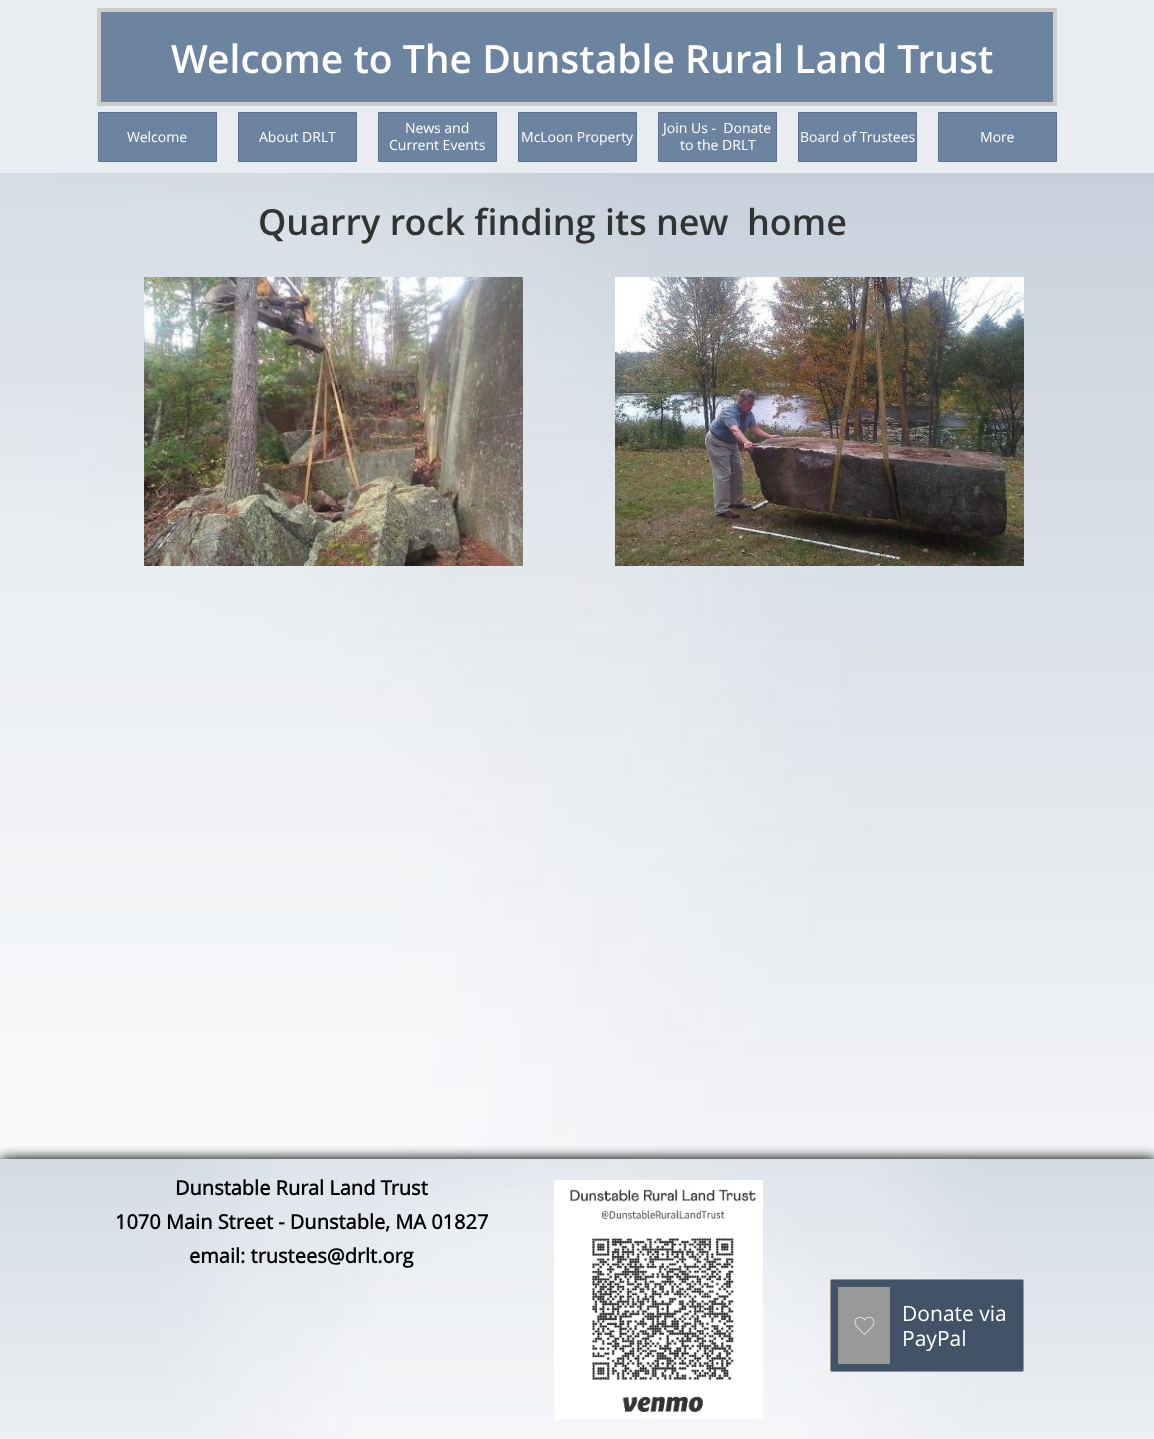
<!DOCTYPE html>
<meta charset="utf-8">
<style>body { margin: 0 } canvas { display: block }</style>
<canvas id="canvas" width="1154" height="1439"></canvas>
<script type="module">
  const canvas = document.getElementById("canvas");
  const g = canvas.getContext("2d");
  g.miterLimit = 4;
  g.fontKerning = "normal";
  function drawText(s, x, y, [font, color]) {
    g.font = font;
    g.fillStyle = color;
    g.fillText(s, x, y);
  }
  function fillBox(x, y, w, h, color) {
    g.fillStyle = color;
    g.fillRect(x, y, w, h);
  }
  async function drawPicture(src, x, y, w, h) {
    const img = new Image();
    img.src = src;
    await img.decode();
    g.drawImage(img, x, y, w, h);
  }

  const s1 = ["600 39px Open Sans", "#FFFFFF"];
  const s2 = ["14px Open Sans", "#FFFFFF"];
  const s3 = ["600 36px Open Sans", "#333333"];
  const s4 = ["bold 20px Open Sans", "#000000"];
  const s5 = ["21px Open Sans", "#FFFFFF"];

  fillBox(0, 0, 1154, 1439, "#FFFFFF");
  fillBox(0, 0, 1154, 173, "#E9EDF1");
  g.fillStyle = "#6D84A1";
  g.beginPath();
  g.rect(99, 10, 956, 94);
  g.fill();
  g.strokeStyle = "#CCCCCC";
  g.lineWidth = 4;
  g.stroke();
  drawText("Welcome to The Dunstable Rural Land Trust", 171, 73, s1);
  g.fillStyle = "#6D84A1";
  g.beginPath();
  g.rect(98.5, 112.5, 118, 49);
  g.fill();
  g.strokeStyle = "#5C728F";
  g.lineWidth = 1;
  g.stroke();
  drawText("Welcome", 127, 142, s2);
  g.fillStyle = "#6D84A1";
  g.beginPath();
  g.rect(238.5, 112.5, 118, 49);
  g.fill();
  g.stroke();
  drawText("About DRLT", 259, 142, s2);
  g.fillStyle = "#6D84A1";
  g.beginPath();
  g.rect(378.5, 112.5, 118, 49);
  g.fill();
  g.stroke();
  drawText("News and", 405, 133, s2);
  drawText("Current Events", 389, 150, s2);
  g.fillStyle = "#6D84A1";
  g.beginPath();
  g.rect(518.5, 112.5, 118, 49);
  g.fill();
  g.stroke();
  drawText("McLoon Property", 521, 142, s2);
  g.fillStyle = "#6D84A1";
  g.beginPath();
  g.rect(658.5, 112.5, 118, 49);
  g.fill();
  g.stroke();
  drawText("Join Us -  Donate", 663, 133, s2);
  drawText("to the DRLT", 680, 150, s2);
  g.fillStyle = "#6D84A1";
  g.beginPath();
  g.rect(798.5, 112.5, 118, 49);
  g.fill();
  g.stroke();
  drawText("Board of Trustees", 800, 142, s2);
  g.fillStyle = "#6D84A1";
  g.beginPath();
  g.rect(938.5, 112.5, 118, 49);
  g.fill();
  g.stroke();
  drawText("More", 980, 142, s2);
  await drawPicture("pic6.png", 0, 173, 1154, 986);
  drawText("Quarry rock finding its new  home", 258, 235, s3);
  await drawPicture("pic1.png", 144, 277, 379, 289);
  await drawPicture("pic2.png", 615, 277, 409, 289);
  await drawPicture("pic3.png", 0, 1159, 1154, 280);
  g.save();
  g.beginPath();
  g.rect(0, 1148, 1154, 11);
  g.clip();
  g.fillStyle = "#000000";
  g.filter = "blur(10px)";
  g.beginPath();
  g.rect(10, 1169, 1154, 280);
  g.fill();
  g.filter = "none";
  g.restore();
  g.save();
  g.beginPath();
  g.rect(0, 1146, 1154, 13);
  g.clip();
  g.fillStyle = "#000000";
  g.filter = "blur(6.5px)";
  g.beginPath();
  g.rect(0, 1159, 1154, 280);
  g.fill();
  g.filter = "none";
  g.restore();
  drawText("Dunstable Rural Land Trust", 175, 1195, s4);
  drawText("1070 Main Street - Dunstable, MA 01827", 115, 1229, s4);
  drawText("email: trustees@drlt.org", 189, 1263, s4);
  await drawPicture("pic4.png", 554, 1180, 209, 239);
  g.fillStyle = "#425267";
  g.beginPath();
  g.roundRect(830.5, 1279.5, 193, 92, 1.5);
  g.fill();
  g.strokeStyle = "#9B9687";
  g.stroke();
  fillBox(838, 1287, 52, 77, "#999999");
  await drawPicture("pic5.png", 854, 1317, 21, 18);
  drawText("Donate via", 902, 1321, s5);
  drawText("PayPal", 902, 1346, s5);
</script>
